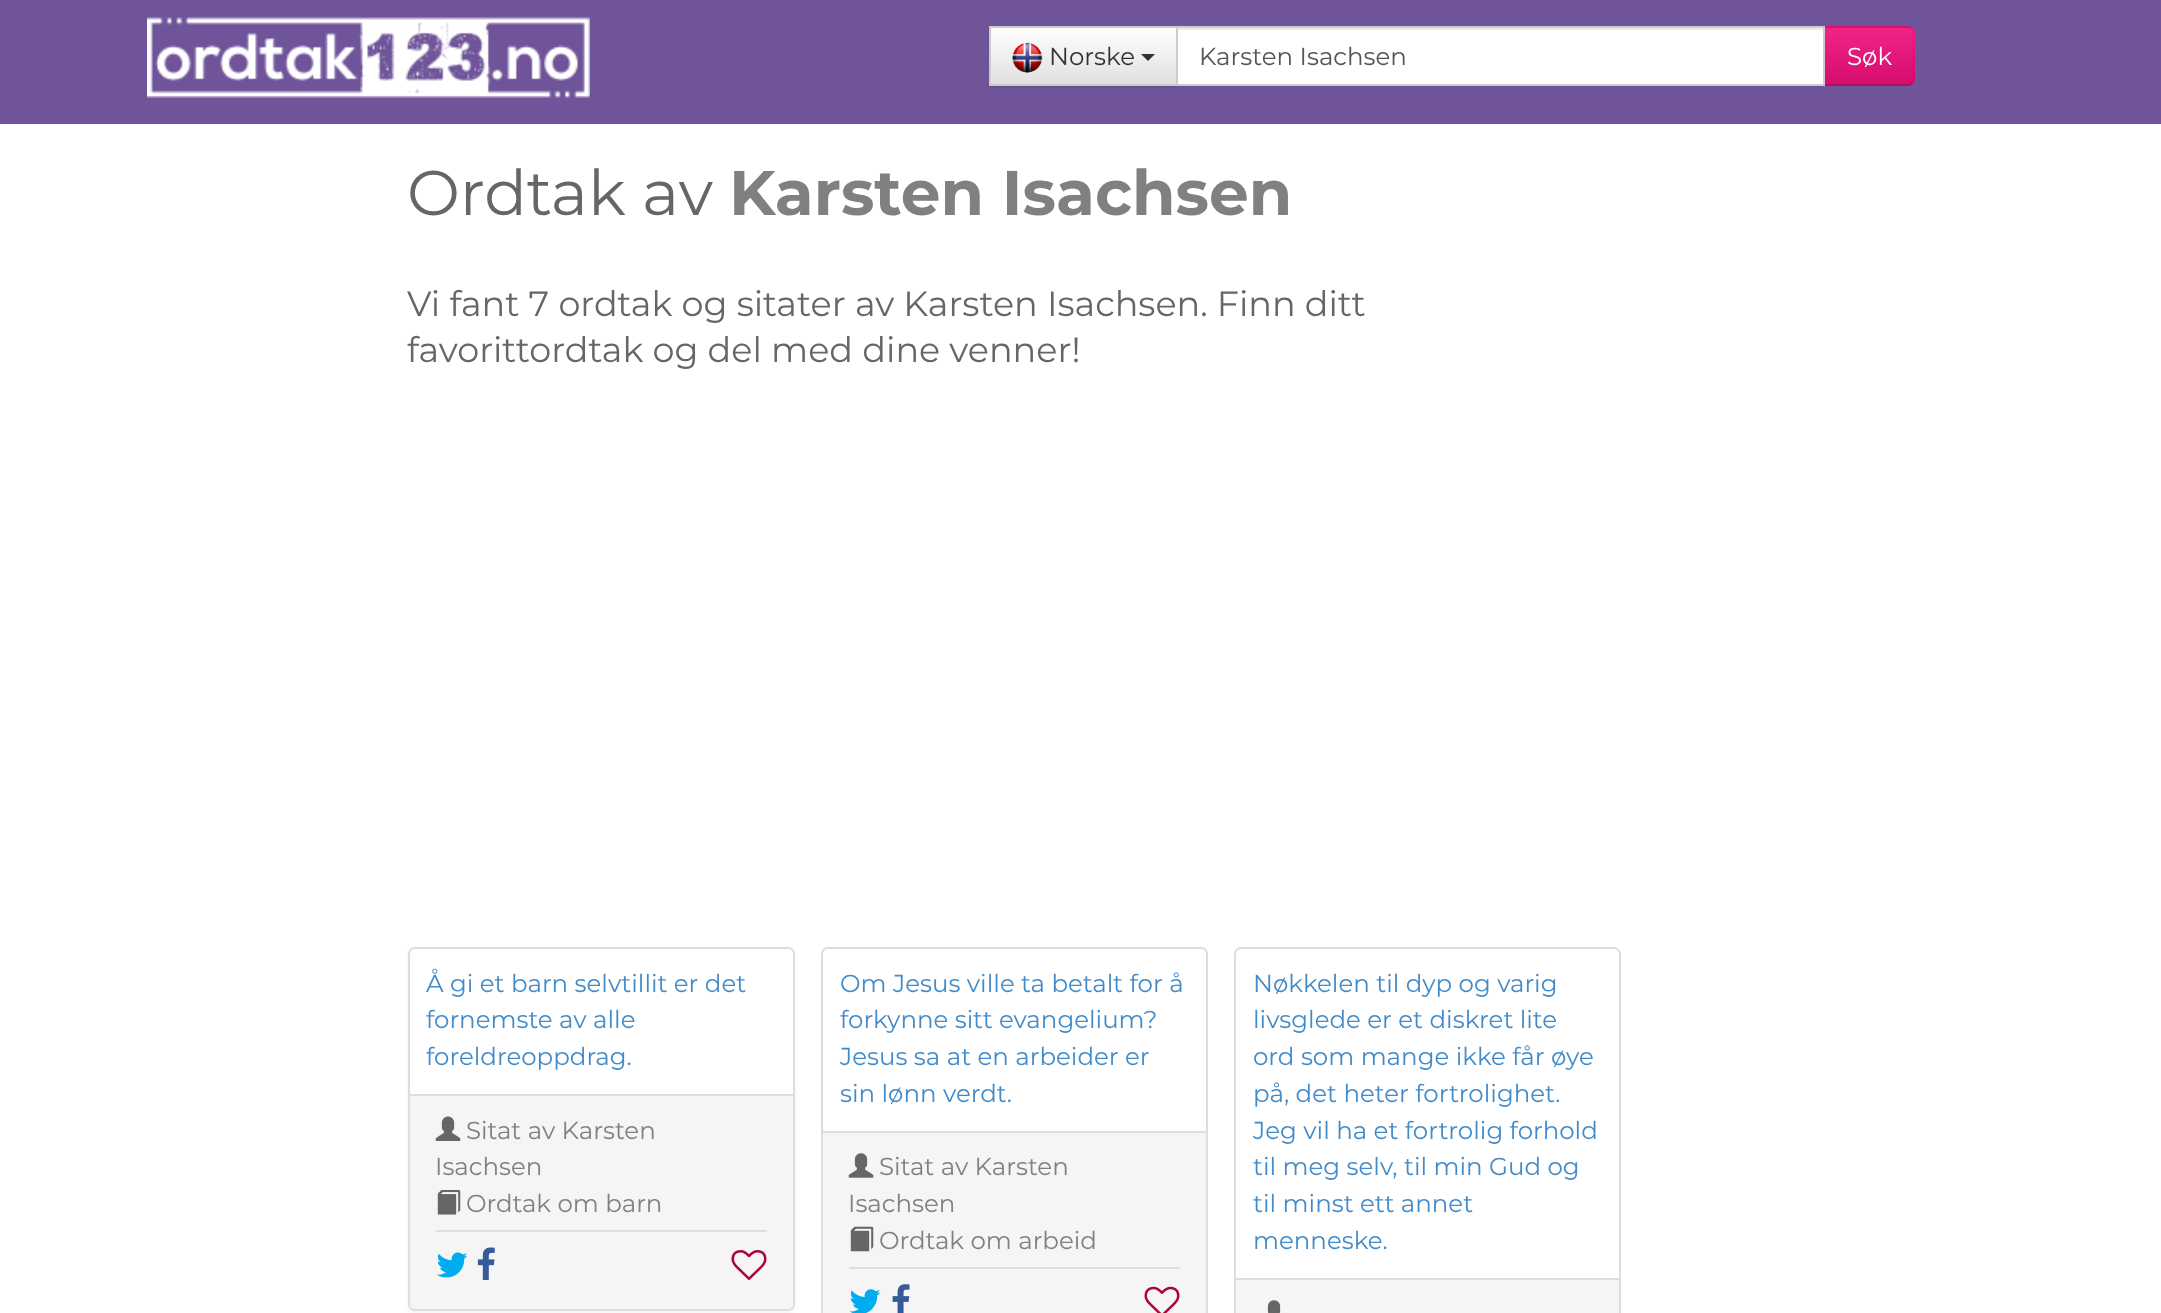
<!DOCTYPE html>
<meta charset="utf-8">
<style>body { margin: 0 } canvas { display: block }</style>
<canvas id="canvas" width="2161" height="1313"></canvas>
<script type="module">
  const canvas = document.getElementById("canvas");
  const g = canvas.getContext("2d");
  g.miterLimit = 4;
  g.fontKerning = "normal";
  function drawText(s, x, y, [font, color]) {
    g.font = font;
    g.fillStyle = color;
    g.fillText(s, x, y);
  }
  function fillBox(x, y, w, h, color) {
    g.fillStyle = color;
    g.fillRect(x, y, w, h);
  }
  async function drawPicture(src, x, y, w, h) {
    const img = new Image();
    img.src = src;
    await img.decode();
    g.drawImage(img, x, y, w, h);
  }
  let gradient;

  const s1 = ["24.5px Montserrat", "#333333"];
  const s2 = ["24.5px Montserrat", "#555555"];
  const s3 = ["24.5px Montserrat", "#FFFFFF"];
  const s4 = ["63px Montserrat", "#666666"];
  const s5 = ["bold 63px Montserrat", "#808080"];
  const s6 = ["35px Montserrat", "#666666"];
  const s7 = ["24.5px Montserrat", "#428BCA"];
  const s8 = ["24.5px Montserrat", "#808080"];

  fillBox(0, 0, 2161, 1313, "#FFFFFF");
  fillBox(0, 0, 2161, 124, "#6F5499");
  await drawPicture("pic1.png", 147, 17, 443, 81);
  g.fillStyle = "rgba(0, 0, 0, 0.07)";
  g.filter = "blur(1px)";
  g.beginPath();
  g.rect(989, 28, 189, 60);
  g.fill();
  g.filter = "none";
  gradient = g.createLinearGradient(1083, 28, 1083, 84);
  gradient.addColorStop(0, "#FFFFFF");
  gradient.addColorStop(1, "#E0E0E0");
  g.fillStyle = gradient;
  g.fillRect(991, 28, 185, 56);
  g.strokeStyle = "#CCCCCC";
  g.lineWidth = 2;
  g.strokeRect(990, 27, 187, 58);
  await drawPicture("pic2.png", 1012, 42, 31, 31);
  drawText("Norske", 1049, 65, s1);
  g.beginPath();
  g.moveTo(1141, 54);
  g.lineTo(1155, 54);
  g.lineTo(1148, 61);
  g.closePath();
  g.fill();
  fillBox(1178, 30, 645, 54, "#FFFFFF");
  fillBox(1178, 28, 646, 2, "#ECECEC");
  g.fillStyle = "#E71A7D";
  g.beginPath();
  g.roundRect(1824, 26, 91, 60, [0, 7, 7, 0]);
  g.fill();
  g.save();
  g.beginPath();
  g.roundRect(1824, 26, 91, 60, [0, 7, 7, 0]);
  g.clip();
  gradient = g.createLinearGradient(1869, 28, 1869, 84);
  gradient.addColorStop(0, "#F22387");
  gradient.addColorStop(1, "#D50D6E");
  g.fillStyle = gradient;
  g.fillRect(1825, 28, 90, 56);
  g.restore();
  g.fillStyle = "rgba(0, 0, 0, 0.1)";
  g.beginPath();
  g.moveTo(1824, 27);
  g.lineTo(1824, 26);
  g.lineTo(1910, 26);
  g.lineTo(1912, 28);
  g.lineTo(1911, 29);
  g.lineTo(1908, 28);
  g.lineTo(1825, 28);
  g.closePath();
  g.fill();
  g.beginPath();
  g.moveTo(1912, 28);
  g.bezierCurveTo(1913, 30, 1914, 31, 1914, 33);
  g.lineTo(1914, 79);
  g.bezierCurveTo(1914, 81, 1913, 82, 1912, 84);
  g.lineTo(1911, 83);
  g.bezierCurveTo(1912, 82, 1913, 80, 1913, 79);
  g.lineTo(1913, 33);
  g.bezierCurveTo(1913, 32, 1912, 30, 1911, 29);
  g.closePath();
  g.fill();
  g.fillStyle = "rgba(0, 0, 0, 0.25)";
  g.beginPath();
  g.moveTo(1824, 86);
  g.lineTo(1825, 84);
  g.lineTo(1908, 84);
  g.lineTo(1911, 83);
  g.lineTo(1912, 84);
  g.lineTo(1910, 86);
  g.closePath();
  g.fill();
  g.strokeRect(1177, 27, 647, 58);
  drawText("Karsten Isachsen", 1199, 65, s2);
  drawText("Søk", 1847, 65, s3);
  drawText("Ordtak av", 407, 215, s4);
  drawText("Karsten Isachsen", 729, 215, s5);
  drawText("Vi fant 7 ordtak og sitater av Karsten Isachsen. Finn ditt", 407, 316, s6);
  drawText("favorittordtak og del med dine venner!", 407, 362, s6);
  g.fillStyle = "rgba(0, 0, 0, 0.05)";
  g.filter = "blur(2px)";
  g.beginPath();
  g.roundRect(408, 949, 387, 364, 7);
  g.fill();
  g.filter = "none";
  g.fillStyle = "#FFFFFF";
  g.beginPath();
  g.roundRect(409, 948, 385, 362, 6);
  g.fill();
  g.strokeStyle = "#DDDDDD";
  g.stroke();
  drawText("Å gi et barn selvtillit er det", 426, 992, s7);
  drawText("fornemste av alle", 426, 1028, s7);
  drawText("foreldreoppdrag.", 426, 1065, s7);
  g.fillStyle = "#F5F5F5";
  g.beginPath();
  g.roundRect(410, 1094, 383, 215, [0, 0, 5, 5]);
  g.fill();
  fillBox(410, 1094, 383, 2, "#DDDDDD");
  await drawPicture("pic3.png", 435, 1116, 26, 25);
  drawText("Sitat av Karsten", 466, 1139, s8);
  drawText("Isachsen", 435, 1175, s8);
  await drawPicture("pic4.png", 437, 1190, 24, 25);
  drawText("Ordtak om barn", 466, 1212, s8);
  fillBox(436, 1230, 331, 2, "#DEDEDE");
  await drawPicture("pic5.png", 436, 1252, 32, 26);
  await drawPicture("pic6.png", 477, 1247, 18, 33);
  await drawPicture("pic7.png", 731, 1250, 36, 30);
  g.beginPath();
  g.roundRect(822, 948, 385, 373, 6);
  g.stroke();
  drawText("Om Jesus ville ta betalt for å", 840, 992, s7);
  drawText("forkynne sitt evangelium?", 840, 1028, s7);
  drawText("Jesus sa at en arbeider er", 840, 1065, s7);
  drawText("sin lønn verdt.", 840, 1102, s7);
  fillBox(823, 1133, 383, 180, "#F5F5F5");
  fillBox(823, 1131, 383, 2, "#DDDDDD");
  await drawPicture("pic8.png", 848, 1153, 26, 25);
  drawText("Sitat av Karsten", 879, 1175, s8);
  drawText("Isachsen", 848, 1212, s8);
  await drawPicture("pic9.png", 850, 1226, 24, 26);
  drawText("Ordtak om arbeid", 879, 1249, s8);
  fillBox(849, 1267, 331, 2, "#DEDEDE");
  await drawPicture("pic10.png", 849, 1289, 32, 24);
  await drawPicture("pic11.png", 892, 1284, 18, 29);
  await drawPicture("pic12.png", 1144, 1286, 36, 27);
  g.beginPath();
  g.roundRect(1235, 948, 385, 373, 6);
  g.stroke();
  drawText("Nøkkelen til dyp og varig", 1253, 992, s7);
  drawText("livsglede er et diskret lite", 1253, 1028, s7);
  drawText("ord som mange ikke får øye", 1253, 1065, s7);
  drawText("på, det heter fortrolighet.", 1253, 1102, s7);
  drawText("Jeg vil ha et fortrolig forhold", 1253, 1139, s7);
  drawText("til meg selv, til min Gud og", 1253, 1175, s7);
  drawText("til minst ett annet", 1253, 1212, s7);
  drawText("menneske.", 1253, 1249, s7);
  fillBox(1236, 1280, 383, 33, "#F5F5F5");
  fillBox(1236, 1278, 383, 2, "#DDDDDD");
  await drawPicture("pic13.png", 1267, 1300, 14, 13);
</script>
